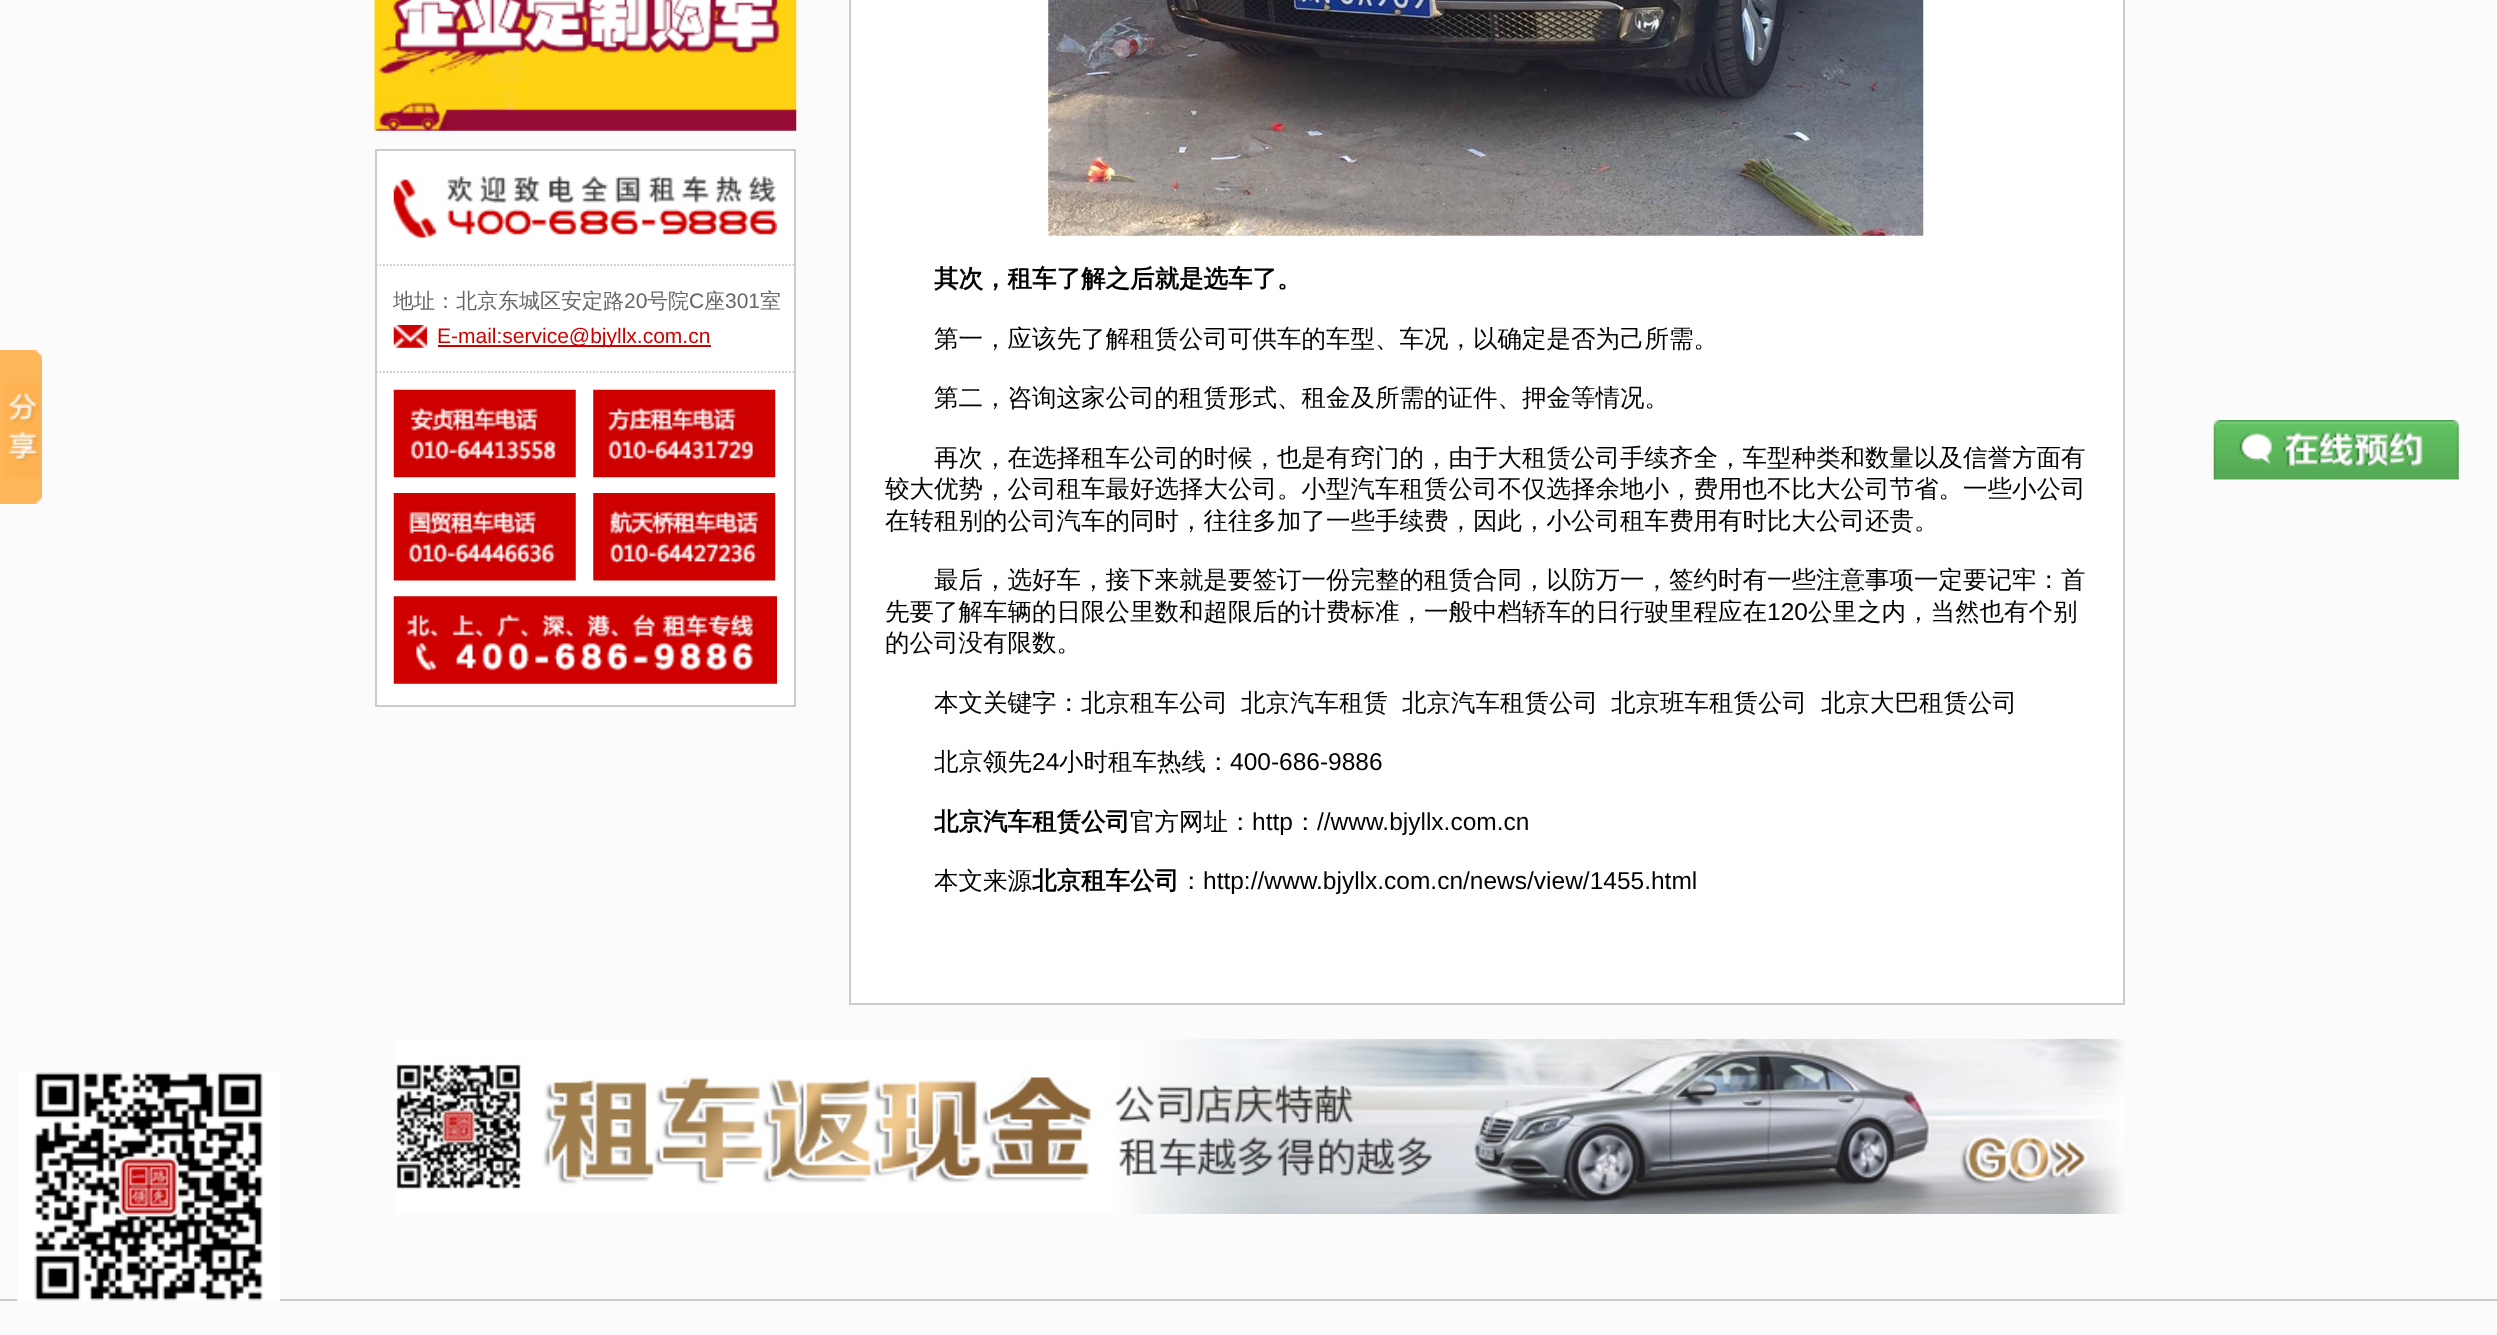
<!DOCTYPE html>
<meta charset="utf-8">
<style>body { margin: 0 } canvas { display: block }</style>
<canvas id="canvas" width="2497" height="1335"></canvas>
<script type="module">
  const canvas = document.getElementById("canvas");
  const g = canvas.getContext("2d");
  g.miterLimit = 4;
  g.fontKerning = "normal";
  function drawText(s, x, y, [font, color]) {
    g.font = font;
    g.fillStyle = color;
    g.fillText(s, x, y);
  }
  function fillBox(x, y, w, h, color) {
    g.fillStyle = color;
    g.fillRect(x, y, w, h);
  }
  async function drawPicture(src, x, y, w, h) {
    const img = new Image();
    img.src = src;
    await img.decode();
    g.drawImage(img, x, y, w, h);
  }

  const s1 = ["500 21px WenQuanYi Zen Hei", "#666666"];
  const s2 = ["21px Liberation Sans", "#666666"];
  const s3 = ["21px Liberation Sans", "#CE0000"];
  const s4 = ["bold 24.5px WenQuanYi Zen Hei", "#000000"];
  const s5 = ["500 24.5px WenQuanYi Zen Hei", "#000000"];
  const s6 = ["24.5px Liberation Sans", "#000000"];

  fillBox(0, 0, 2497, 1335, "#FBFBFB");
  await drawPicture("pic1.png", 0, 350, 42, 154);
  await drawPicture("pic2.png", 374, 0, 423, 131);
  g.fillStyle = "#FFFFFF";
  g.beginPath();
  g.rect(376, 150, 419, 556);
  g.fill();
  g.strokeStyle = "#CCCCCC";
  g.lineWidth = 2;
  g.stroke();
  g.beginPath();
  g.moveTo(376, 265);
  g.lineTo(794.5, 265);
  g.lineWidth = 1.8;
  g.setLineDash([1.75, 1.75]);
  g.stroke();
  await drawPicture("pic3.png", 393, 176, 384, 62);
  g.beginPath();
  g.moveTo(376, 372);
  g.lineTo(794.5, 372);
  g.stroke();
  drawText("地址：北京东城区安定路", 393, 308, s1);
  drawText("20", 624, 308, s2);
  drawText("号院", 647, 308, s1);
  drawText("C", 689, 308, s2);
  drawText("座", 704, 308, s1);
  drawText("301", 725, 308, s2);
  drawText("室", 760, 308, s1);
  await drawPicture("pic4.png", 393, 325, 34, 23);
  fillBox(438, 345, 273, 2, "#CE0000");
  drawText("E-mail:service@bjyllx.com.cn", 437, 343, s3);
  await drawPicture("pic5.png", 393, 389, 183, 89);
  await drawPicture("pic6.png", 593, 389, 183, 89);
  await drawPicture("pic7.png", 393, 493, 183, 88);
  await drawPicture("pic8.png", 593, 493, 183, 88);
  await drawPicture("pic9.png", 393, 596, 384, 88);
  g.fillStyle = "#FFFFFF";
  g.beginPath();
  g.rect(850, -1, 1274, 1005);
  g.fill();
  g.lineWidth = 2;
  g.setLineDash([]);
  g.stroke();
  await drawPicture("pic10.png", 1048, 0, 876, 236);
  drawText("其次，租车了解之后就是选车了。", 934, 287, s4);
  drawText("第一，应该先了解租赁公司可供车的车型、车况，以确定是否为己所需。", 934, 347, s5);
  drawText("第二，咨询这家公司的租赁形式、租金及所需的证件、押金等情况。", 934, 406, s5);
  drawText("再次，在选择租车公司的时候，也是有窍门的，由于大租赁公司手续齐全，车型种类和数量以及信誉方面有", 934, 466, s5);
  drawText("较大优势，公司租车最好选择大公司。小型汽车租赁公司不仅选择余地小，费用也不比大公司节省。一些小公司", 885, 497, s5);
  drawText("在转租别的公司汽车的同时，往往多加了一些手续费，因此，小公司租车费用有时比大公司还贵。", 885, 529, s5);
  drawText("最后，选好车，接下来就是要签订一份完整的租赁合同，以防万一，签约时有一些注意事项一定要记牢：首", 934, 588, s5);
  drawText("先要了解车辆的日限公里数和超限后的计费标准，一般中档轿车的日行驶里程应在", 885, 620, s5);
  drawText("120", 1767, 620, s6);
  drawText("公里之内，当然也有个别", 1808, 620, s5);
  drawText("的公司没有限数。", 885, 651, s5);
  drawText("本文关键字：北京租车公司", 934, 711, s5);
  drawText("北京汽车租赁", 1241, 711, s5);
  drawText("北京汽车租赁公司", 1402, 711, s5);
  drawText("北京班车租赁公司", 1611, 711, s5);
  drawText("北京大巴租赁公司", 1821, 711, s5);
  drawText("北京领先", 934, 770, s5);
  drawText("24", 1032, 770, s6);
  drawText("小时租车热线：", 1059, 770, s5);
  drawText("400-686-9886", 1230, 770, s6);
  drawText("北京汽车租赁公司", 934, 830, s4);
  drawText("官方网址：", 1130, 830, s5);
  drawText("http", 1252, 830, s6);
  drawText("：", 1293, 830, s5);
  drawText("//www.bjyllx.com.cn", 1317, 830, s6);
  drawText("本文来源", 934, 889, s5);
  drawText("北京租车公司", 1032, 889, s4);
  drawText("：", 1179, 889, s5);
  drawText("http://www.bjyllx.com.cn/news/view/1455.html", 1203, 889, s6);
  await drawPicture("pic11.png", 2213, 420, 246, 60);
  await drawPicture("pic12.png", 396, 1039, 1729, 175);
  fillBox(0, 1299, 2497, 2, "#CCCCCC");
  await drawPicture("pic13.png", 17, 1072, 263, 229);
</script>
